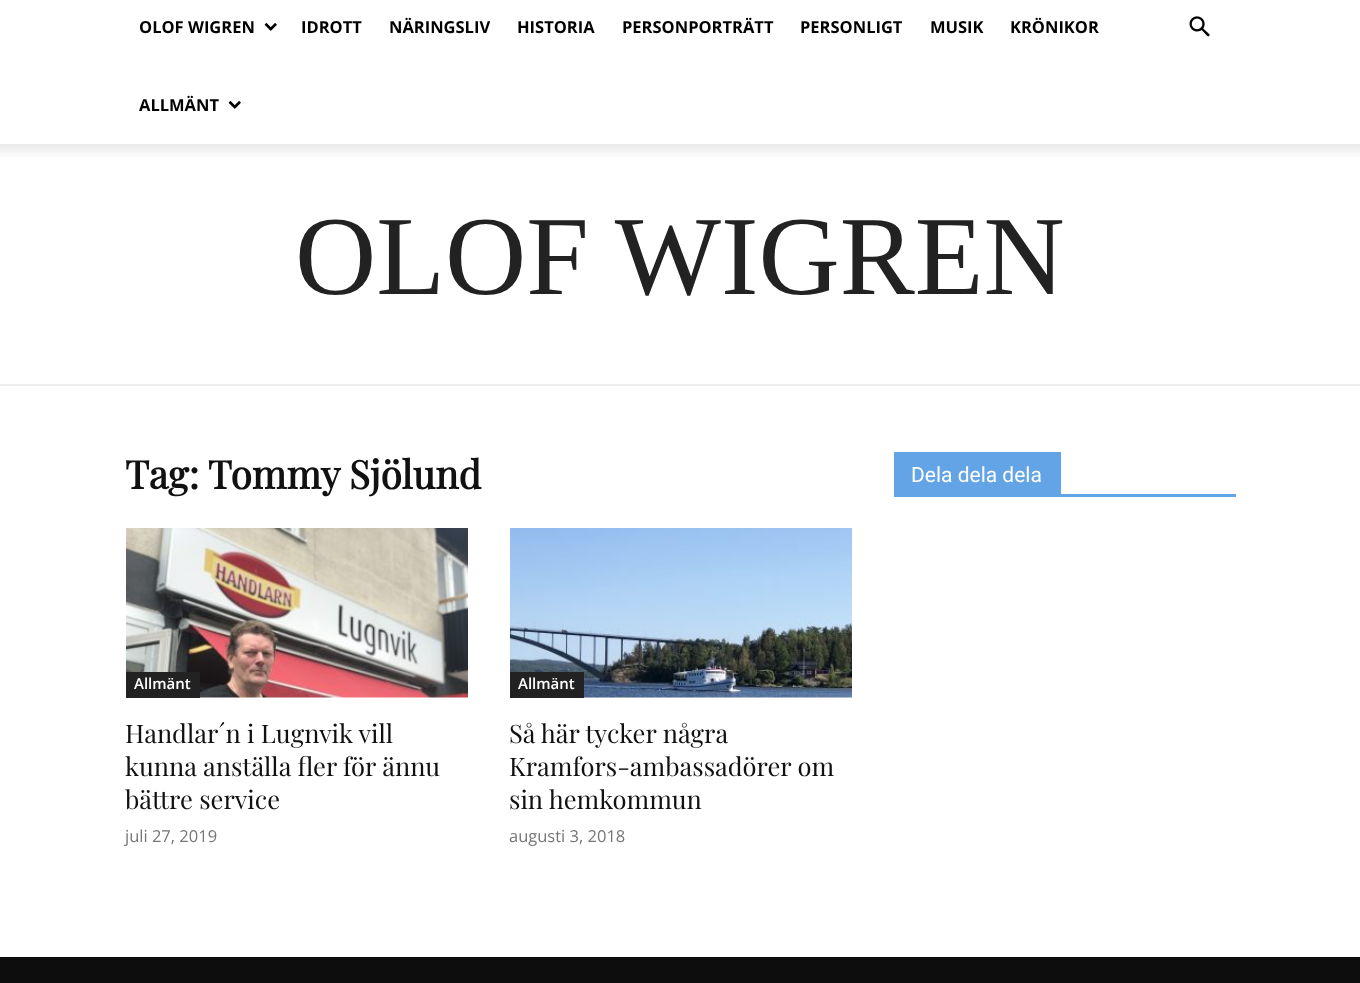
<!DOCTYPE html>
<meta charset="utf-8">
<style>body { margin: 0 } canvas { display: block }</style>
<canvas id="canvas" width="1360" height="983"></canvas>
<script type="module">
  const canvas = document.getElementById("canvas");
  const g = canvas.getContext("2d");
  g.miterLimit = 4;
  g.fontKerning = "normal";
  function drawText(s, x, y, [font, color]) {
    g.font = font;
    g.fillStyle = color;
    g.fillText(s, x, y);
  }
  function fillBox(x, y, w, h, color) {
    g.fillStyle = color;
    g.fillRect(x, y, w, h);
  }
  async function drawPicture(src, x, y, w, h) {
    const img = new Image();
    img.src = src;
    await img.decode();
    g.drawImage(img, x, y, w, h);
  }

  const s1 = ["bold 16.5px Open Sans", "#000000"];
  const s2 = ["112.5px Liberation Serif", "#222222"];
  const s3 = ["bold 39px Playfair Display", "#111111"];
  const s4 = ["600 15px Open Sans", "#FFFFFF"];
  const s5 = ["25.5px Playfair Display", "#111111"];
  const s6 = ["16.5px Open Sans", "#767676"];
  const s7 = ["21px Roboto", "#FFFFFF"];

  fillBox(0, 0, 1360, 983, "#FFFFFF");
  drawText("OLOF WIGREN", 139, 33, s1);
  await drawPicture("pic1.png", 264, 23, 13, 8);
  drawText("IDROTT", 301, 33, s1);
  drawText("NÄRINGSLIV", 389, 33, s1);
  drawText("HISTORIA", 517, 33, s1);
  drawText("PERSONPORTRÄTT", 622, 33, s1);
  drawText("PERSONLIGT", 800, 33, s1);
  drawText("MUSIK", 930, 33, s1);
  drawText("KRÖNIKOR", 1010, 33, s1);
  drawText("ALLMÄNT", 139, 111, s1);
  await drawPicture("pic1.png", 228, 101, 13, 8);
  await drawPicture("pic2.png", 1189, 16, 21, 21);
  await drawPicture("pic3.png", 0, 144, 1360, 13);
  fillBox(0, 384, 1360, 2, "#EEEEEE");
  drawText("OLOF WIGREN", 295, 294, s2);
  drawText("Tag: Tommy Sjölund", 125, 489, s3);
  await drawPicture("pic4.png", 126, 528, 342, 170);
  fillBox(126, 672, 74, 26, "#222222");
  drawText("Allmänt", 134, 689, s4);
  drawText("Handlar´n i Lugnvik vill", 125, 743, s5);
  drawText("kunna anställa fler för ännu", 125, 776, s5);
  drawText("bättre service", 125, 809, s5);
  drawText("juli 27, 2019", 125, 842, s6);
  await drawPicture("pic5.png", 510, 528, 342, 170);
  fillBox(510, 672, 74, 26, "#222222");
  drawText("Allmänt", 518, 689, s4);
  drawText("Så här tycker några", 509, 743, s5);
  drawText("Kramfors-ambassadörer om", 509, 776, s5);
  drawText("sin hemkommun", 509, 809, s5);
  drawText("augusti 3, 2018", 509, 842, s6);
  fillBox(894, 494, 342, 3, "#62A4E5");
  fillBox(894, 452, 167, 42, "#62A4E5");
  drawText("Dela dela dela", 911, 482, s7);
  fillBox(0, 957, 1360, 26, "#0D0D0D");
</script>
